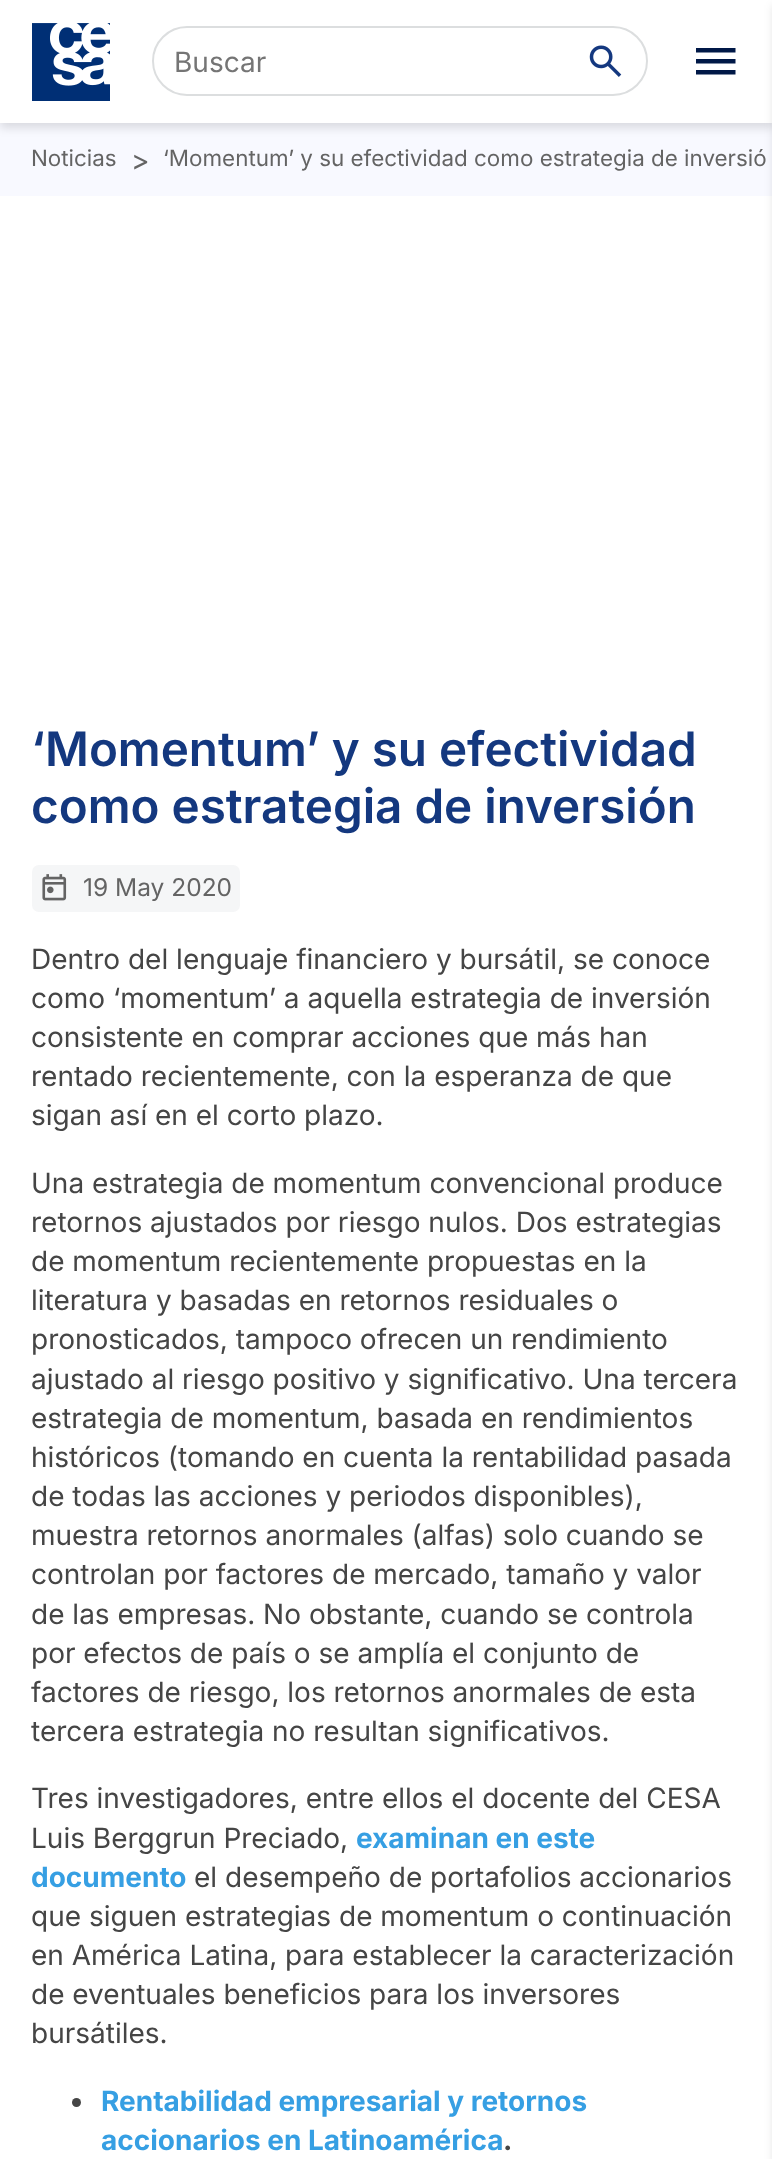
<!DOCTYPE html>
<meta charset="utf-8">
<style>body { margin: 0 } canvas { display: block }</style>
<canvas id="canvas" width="772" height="2159"></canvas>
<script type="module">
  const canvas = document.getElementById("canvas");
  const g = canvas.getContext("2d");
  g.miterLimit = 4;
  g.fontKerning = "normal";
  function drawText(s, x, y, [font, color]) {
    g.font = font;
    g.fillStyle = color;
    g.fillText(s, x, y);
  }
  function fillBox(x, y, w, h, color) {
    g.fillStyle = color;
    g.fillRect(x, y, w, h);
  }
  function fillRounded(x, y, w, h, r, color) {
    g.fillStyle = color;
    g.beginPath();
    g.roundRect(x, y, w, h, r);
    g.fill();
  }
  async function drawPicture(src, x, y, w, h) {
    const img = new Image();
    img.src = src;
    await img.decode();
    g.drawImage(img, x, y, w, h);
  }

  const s1 = ["28px Inter", "#757575"];
  const s2 = ["22.4px Inter", "#646464"];
  const s3 = ["28px Inter", "#646464"];
  const s4 = ["600 47.6px Inter", "#14387F"];
  const s5 = ["24.5px Inter", "#646464"];
  const s6 = ["28px Inter", "#454545"];
  const s7 = ["bold 28px Inter", "#369FE3"];
  const s8 = ["bold 28px Inter", "#454545"];

  fillBox(0, 0, 772, 2159, "#FFFFFF");
  fillBox(0, 123, 772, 73, "#F8F9FF");
  g.fillStyle = "rgba(0, 0, 0, 0.12)";
  g.filter = "blur(5px)";
  g.beginPath();
  g.rect(0, 5, 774, 123);
  g.fill();
  g.filter = "none";
  fillBox(0, 0, 772, 123, "#FFFFFF");
  await drawPicture("pic1.png", 32, 23, 78, 78);
  g.beginPath();
  g.roundRect(153, 27, 494, 68, 34);
  g.strokeStyle = "#DCDEDF";
  g.lineWidth = 2;
  g.stroke();
  drawText("Buscar", 174, 72, s1);
  await drawPicture("pic2.png", 589, 45, 33, 32);
  g.fillStyle = "#001847";
  g.beginPath();
  g.moveTo(696, 74.5);
  g.lineTo(696, 70);
  g.lineTo(735.5, 70);
  g.lineTo(735.5, 74.5);
  g.closePath();
  g.moveTo(696, 63.5);
  g.lineTo(696, 59);
  g.lineTo(735.5, 59);
  g.lineTo(735.5, 63.5);
  g.closePath();
  g.moveTo(696, 52.5);
  g.lineTo(696, 48);
  g.lineTo(735.5, 48);
  g.lineTo(735.5, 52.5);
  g.closePath();
  g.fill();
  g.fillStyle = "rgba(0, 0, 0, 0.15)";
  g.filter = "blur(5px)";
  g.beginPath();
  g.rect(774, 5, 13, 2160);
  g.fill();
  g.filter = "none";
  drawText("Noticias", 31, 166, s2);
  drawText(">", 131, 170, s3);
  drawText("‘Momentum’ y su efectividad como estrategia de inversió", 163, 166, s2);
  drawText("‘Momentum’ y su efectividad", 31, 766, s4);
  drawText("como estrategia de inversión", 31, 823, s4);
  fillRounded(32, 865, 208, 47, 7, "#F5F6F7");
  await drawPicture("pic3.png", 42, 874, 25, 27);
  drawText("19 May 2020", 83, 896, s5);
  drawText("Dentro del lenguaje financiero y bursátil, se conoce", 31, 969, s6);
  drawText("como ‘momentum’ a aquella estrategia de inversión", 31, 1008, s6);
  drawText("consistente en comprar acciones que más han", 31, 1047, s6);
  drawText("rentado recientemente, con la esperanza de que", 31, 1086, s6);
  drawText("sigan así en el corto plazo.", 31, 1125, s6);
  drawText("Una estrategia de momentum convencional produce", 31, 1193, s6);
  drawText("retornos ajustados por riesgo nulos. Dos estrategias", 31, 1232, s6);
  drawText("de momentum recientemente propuestas en la", 31, 1271, s6);
  drawText("literatura y basadas en retornos residuales o", 31, 1310, s6);
  drawText("pronosticados, tampoco ofrecen un rendimiento", 31, 1349, s6);
  drawText("ajustado al riesgo positivo y significativo. Una tercera", 31, 1389, s6);
  drawText("estrategia de momentum, basada en rendimientos", 31, 1428, s6);
  drawText("históricos (tomando en cuenta la rentabilidad pasada", 31, 1467, s6);
  drawText("de todas las acciones y periodos disponibles),", 31, 1506, s6);
  drawText("muestra retornos anormales (alfas) solo cuando se", 31, 1545, s6);
  drawText("controlan por factores de mercado, tamaño y valor", 31, 1584, s6);
  drawText("de las empresas. No obstante, cuando se controla", 31, 1624, s6);
  drawText("por efectos de país o se amplía el conjunto de", 31, 1663, s6);
  drawText("factores de riesgo, los retornos anormales de esta", 31, 1702, s6);
  drawText("tercera estrategia no resultan significativos.", 31, 1741, s6);
  drawText("Tres investigadores, entre ellos el docente del CESA", 31, 1808, s6);
  drawText("Luis Berggrun Preciado,", 31, 1848, s6);
  drawText("examinan en este", 356, 1848, s7);
  drawText("documento", 31, 1887, s7);
  drawText("el desempeño de portafolios accionarios", 194, 1887, s6);
  drawText("que siguen estrategias de momentum o continuación", 31, 1926, s6);
  drawText("en América Latina, para establecer la caracterización", 31, 1965, s6);
  drawText("de eventuales beneficios para los inversores", 31, 2004, s6);
  drawText("bursátiles.", 31, 2043, s6);
  g.beginPath();
  g.arc(76.5, 2102.5, 4.5, 0, Math.PI * 2);
  g.fill();
  drawText("Rentabilidad empresarial y retornos", 101, 2111, s7);
  drawText("accionarios en Latinoamérica", 101, 2150, s7);
  drawText(".", 503, 2150, s8);
</script>
